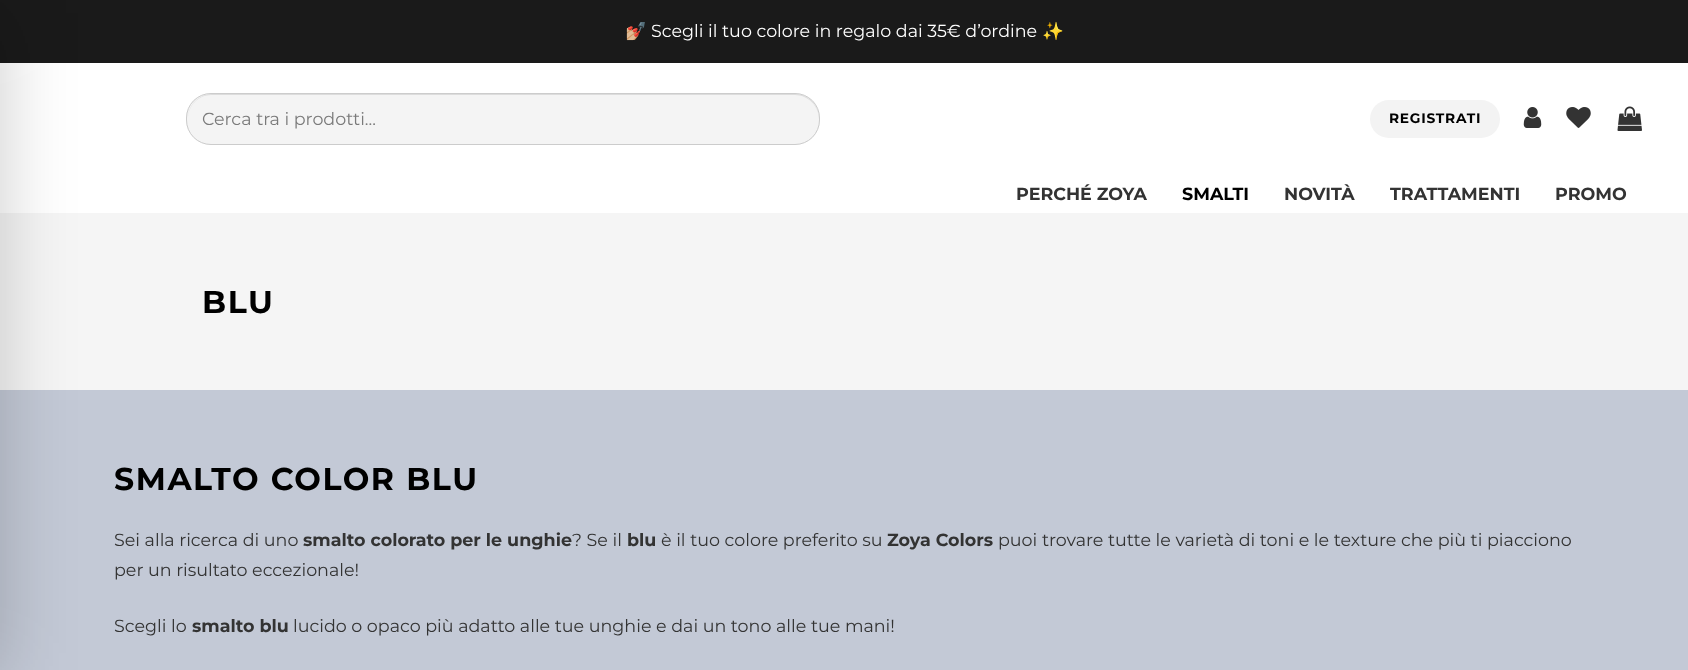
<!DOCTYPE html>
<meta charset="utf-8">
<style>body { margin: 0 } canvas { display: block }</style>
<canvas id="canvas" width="1688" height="670"></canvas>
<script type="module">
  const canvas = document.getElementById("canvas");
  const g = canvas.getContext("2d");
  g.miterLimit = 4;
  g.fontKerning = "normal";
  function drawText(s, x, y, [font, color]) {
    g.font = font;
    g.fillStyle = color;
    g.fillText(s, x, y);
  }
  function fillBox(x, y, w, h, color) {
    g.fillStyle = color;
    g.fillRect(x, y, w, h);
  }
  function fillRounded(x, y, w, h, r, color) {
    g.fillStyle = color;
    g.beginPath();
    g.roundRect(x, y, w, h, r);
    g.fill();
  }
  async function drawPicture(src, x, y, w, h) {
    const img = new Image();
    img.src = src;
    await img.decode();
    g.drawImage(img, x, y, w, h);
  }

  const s1 = ["17.5px Noto Color Emoji", "#FFFFFF"];
  const s2 = ["100 17.5px 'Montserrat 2'", "#FFFFFF"];
  const s3 = ["100 17.5px 'Montserrat 2'", "#7A7A7A"];
  const s4 = ["100 13.75px Montserrat", "#000000"];
  const s5 = ["100 17.5px Montserrat", "#333333"];
  const s6 = ["100 17.5px Montserrat", "#000000"];
  const s7 = ["100 31.5px Montserrat", "#000000"];
  const s8 = ["100 17.5px 'Montserrat 2'", "#333333"];

  fillBox(0, 0, 1688, 670, "#F5F5F5");
  fillBox(0, 0, 1688, 63, "#1A1A1A");
  fillBox(0, 63, 1688, 150, "#FFFFFF");
  fillBox(0, 390, 1688, 280, "#C3C9D6");
  g.fillStyle = "rgba(0, 0, 0, 0.2)";
  g.filter = "blur(37.5px)";
  g.beginPath();
  g.rect(-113, 13, 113, 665);
  g.fill();
  g.filter = "none";
  drawText("💅🏼", 625, 37, s1);
  drawText("Scegli il tuo colore in regalo dai 35€ d’ordine", 651, 37, s2);
  drawText("✨", 1042, 37, s1);
  fillRounded(186, 93, 634, 52, 25, "#F4F4F4");
  g.fillStyle = "#DCDCDC";
  g.beginPath();
  g.moveTo(211, 95);
  g.lineTo(795, 95);
  g.bezierCurveTo(808, 95, 819, 106, 819, 119);
  g.lineTo(819, 118);
  g.bezierCurveTo(819, 105, 808, 94, 795, 94);
  g.lineTo(212, 94);
  g.bezierCurveTo(199, 94, 188, 105, 188, 118);
  g.lineTo(188, 119);
  g.bezierCurveTo(188, 106, 198, 95, 211, 95);
  g.closePath();
  g.fill();
  g.beginPath();
  g.roundRect(186.5, 93.5, 633, 51, 24.5);
  g.strokeStyle = "#CCCCCC";
  g.stroke();
  drawText("Cerca tra i prodotti...", 202, 125, s3);
  fillRounded(1370, 100, 130, 38, 19, "#F3F3F3");
  g.letterSpacing = "0.75px";
  drawText("REGISTRATI", 1389, 123, s4);
  await drawPicture("pic1.png", 1523, 107, 19, 21);
  await drawPicture("pic2.png", 1566, 107, 25, 21);
  await drawPicture("pic3.png", 1617, 106, 25, 25);
  g.letterSpacing = "0px";
  drawText("PERCHÉ ZOYA", 1016, 200, s5);
  drawText("SMALTI", 1182, 200, s6);
  drawText("NOVITÀ", 1284, 200, s5);
  drawText("TRATTAMENTI", 1390, 200, s5);
  drawText("PROMO", 1555, 200, s5);
  g.letterSpacing = "1.6px";
  drawText("BLU", 202, 313, s7);
  drawText("SMALTO COLOR BLU", 114, 490, s7);
  g.letterSpacing = "0px";
  drawText("Sei alla ricerca di uno", 114, 546, s8);
  drawText("smalto colorato per le unghie", 303, 546, s5);
  drawText("? Se il", 572, 546, s8);
  drawText("blu", 627, 546, s5);
  drawText("è il tuo colore preferito su", 661, 546, s8);
  drawText("Zoya Colors", 887, 546, s5);
  drawText("puoi trovare tutte le varietà di toni e le texture che più ti piacciono", 998, 546, s8);
  drawText("per un risultato eccezionale!", 114, 576, s8);
  drawText("Scegli lo", 114, 632, s8);
  drawText("smalto blu", 192, 632, s5);
  drawText("lucido o opaco più adatto alle tue unghie e dai un tono alle tue mani!", 293, 632, s8);
</script>
